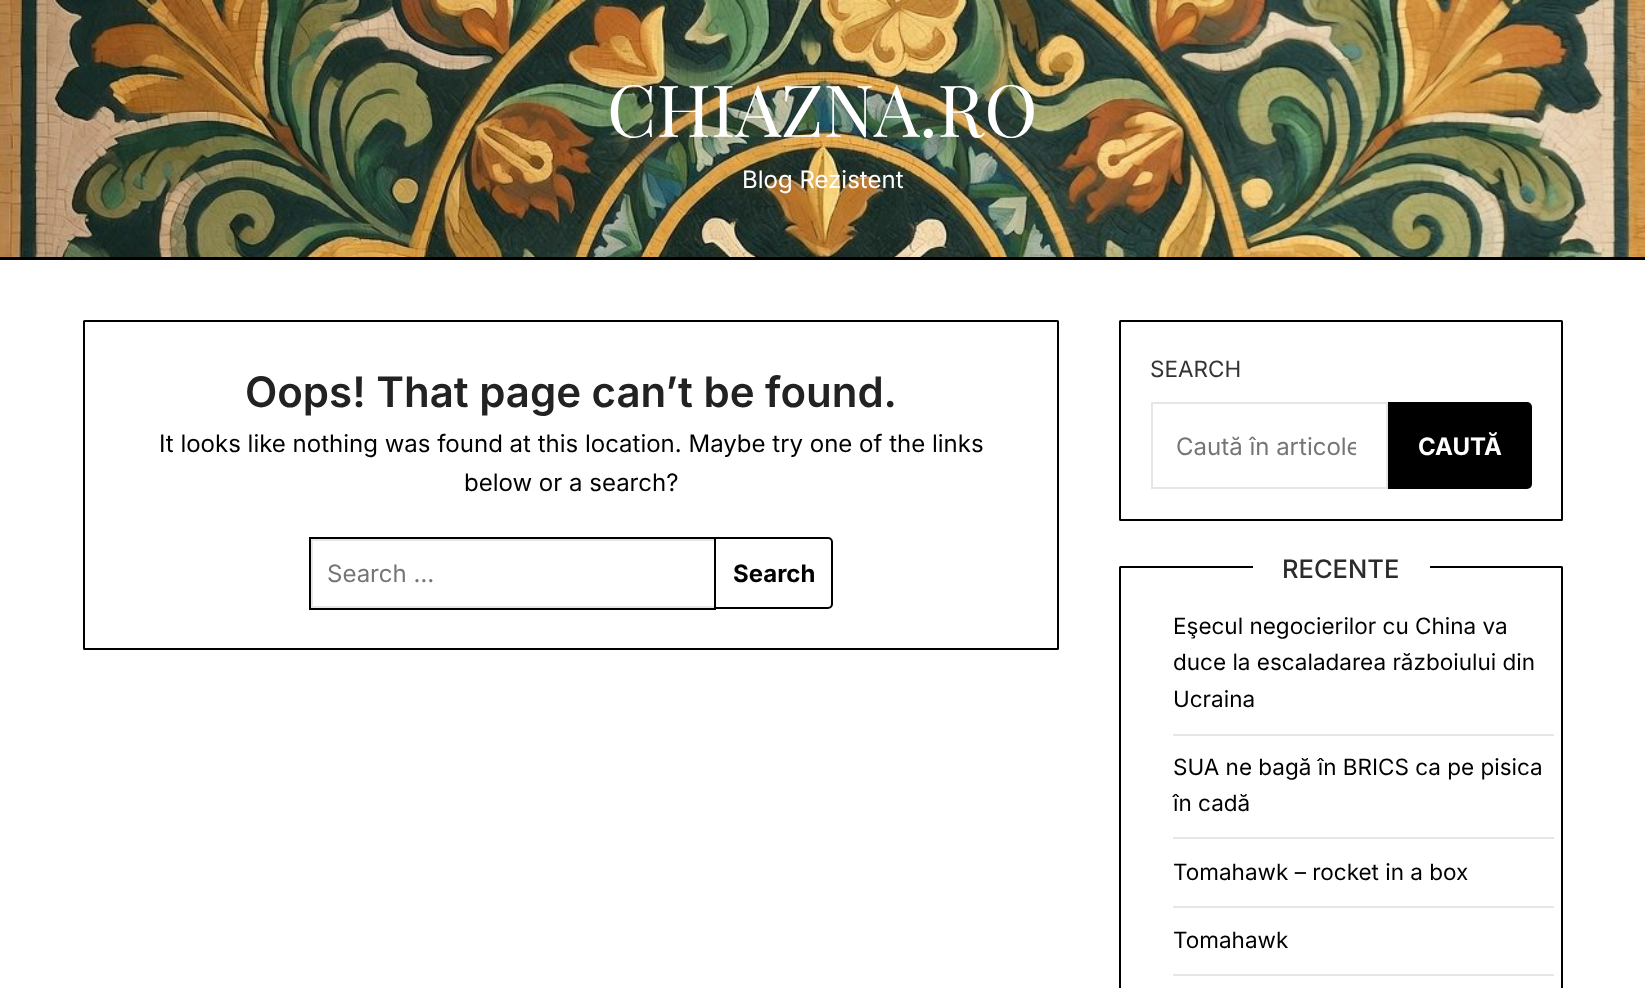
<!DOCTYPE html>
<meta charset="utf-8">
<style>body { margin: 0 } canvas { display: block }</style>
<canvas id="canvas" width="1645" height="988"></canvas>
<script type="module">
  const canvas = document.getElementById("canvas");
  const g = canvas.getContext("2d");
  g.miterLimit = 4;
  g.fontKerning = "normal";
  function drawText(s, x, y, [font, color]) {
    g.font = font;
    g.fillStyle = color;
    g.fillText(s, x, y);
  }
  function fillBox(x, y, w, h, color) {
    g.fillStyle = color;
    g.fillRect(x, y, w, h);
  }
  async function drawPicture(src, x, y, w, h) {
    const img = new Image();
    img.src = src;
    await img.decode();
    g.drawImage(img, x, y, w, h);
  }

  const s1 = ["72px Playfair Display", "#FFFFFF"];
  const s2 = ["24px Inter", "#FFFFFF"];
  const s3 = ["600 42px Inter", "#222222"];
  const s4 = ["24px Inter", "#000000"];
  const s5 = ["24px Inter", "#757575"];
  const s6 = ["bold 24px Inter", "#000000"];
  const s7 = ["22.5px Inter", "#333333"];
  const s8 = ["bold 24px Inter", "#FFFFFF"];
  const s9 = ["500 25.5px Inter", "#2B2B2B"];
  const s10 = ["22.5px Inter", "#000000"];

  fillBox(0, 0, 1645, 988, "#FFFFFF");
  await drawPicture("pic1.png", 0, 0, 1645, 257);
  drawText("CHIAZNA.RO", 607, 137, s1);
  drawText("Blog Rezistent", 742, 188, s2);
  fillBox(0, 257, 1645, 3, "#000000");
  g.beginPath();
  g.roundRect(84, 321, 974, 328, 0.5);
  g.strokeStyle = "#000000";
  g.lineWidth = 2;
  g.stroke();
  drawText("Oops! That page can’t be found.", 245, 407, s3);
  drawText("It looks like nothing was found at this location. Maybe try one of the links", 159, 452, s4);
  drawText("below or a search?", 464, 491, s4);
  fillBox(309, 537, 407, 2, "#000000");
  fillBox(309, 608, 407, 2, "#000000");
  fillBox(309, 537, 2, 72, "#000000");
  g.strokeStyle = "#E5E6E9";
  g.strokeRect(312, 540, 403, 67);
  drawText("Search …", 327, 582, s5);
  g.beginPath();
  g.roundRect(715, 538, 117, 70, [0, 4, 4, 0]);
  g.strokeStyle = "#000000";
  g.stroke();
  drawText("Search", 733, 582, s6);
  g.beginPath();
  g.roundRect(1120, 321, 442, 199, 0.5);
  g.stroke();
  drawText("SEARCH", 1150, 377, s7);
  g.strokeStyle = "#E5E6E9";
  g.strokeRect(1152, 403, 235, 85);
  g.save();
  g.beginPath();
  g.rect(1176, 431, 180, 30);
  g.clip();
  drawText("Caută în articole", 1176, 455, s5);
  g.restore();
  g.fillStyle = "#000000";
  g.beginPath();
  g.roundRect(1388, 402, 144, 87, [0, 5, 5, 0]);
  g.fill();
  drawText("CAUTĂ", 1418, 455, s8);
  g.beginPath();
  g.roundRect(1120, 567, 442, 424, 0.5);
  g.strokeStyle = "#000000";
  g.stroke();
  fillBox(1253, 566, 177, 2, "#FFFFFF");
  drawText("RECENTE", 1282, 578, s9);
  fillBox(1173, 734, 381, 2, "#E6E6E6");
  drawText("Eşecul negocierilor cu China va", 1173, 634, s10);
  drawText("duce la escaladarea războiului din", 1173, 670, s10);
  drawText("Ucraina", 1173, 707, s10);
  fillBox(1173, 837, 381, 2, "#E6E6E6");
  drawText("SUA ne bagă în BRICS ca pe pisica", 1173, 775, s10);
  drawText("în cadă", 1173, 811, s10);
  fillBox(1173, 906, 381, 2, "#E6E6E6");
  drawText("Tomahawk – rocket in a box", 1173, 880, s10);
  fillBox(1173, 974, 381, 2, "#E6E6E6");
  drawText("Tomahawk", 1173, 948, s10);
</script>
